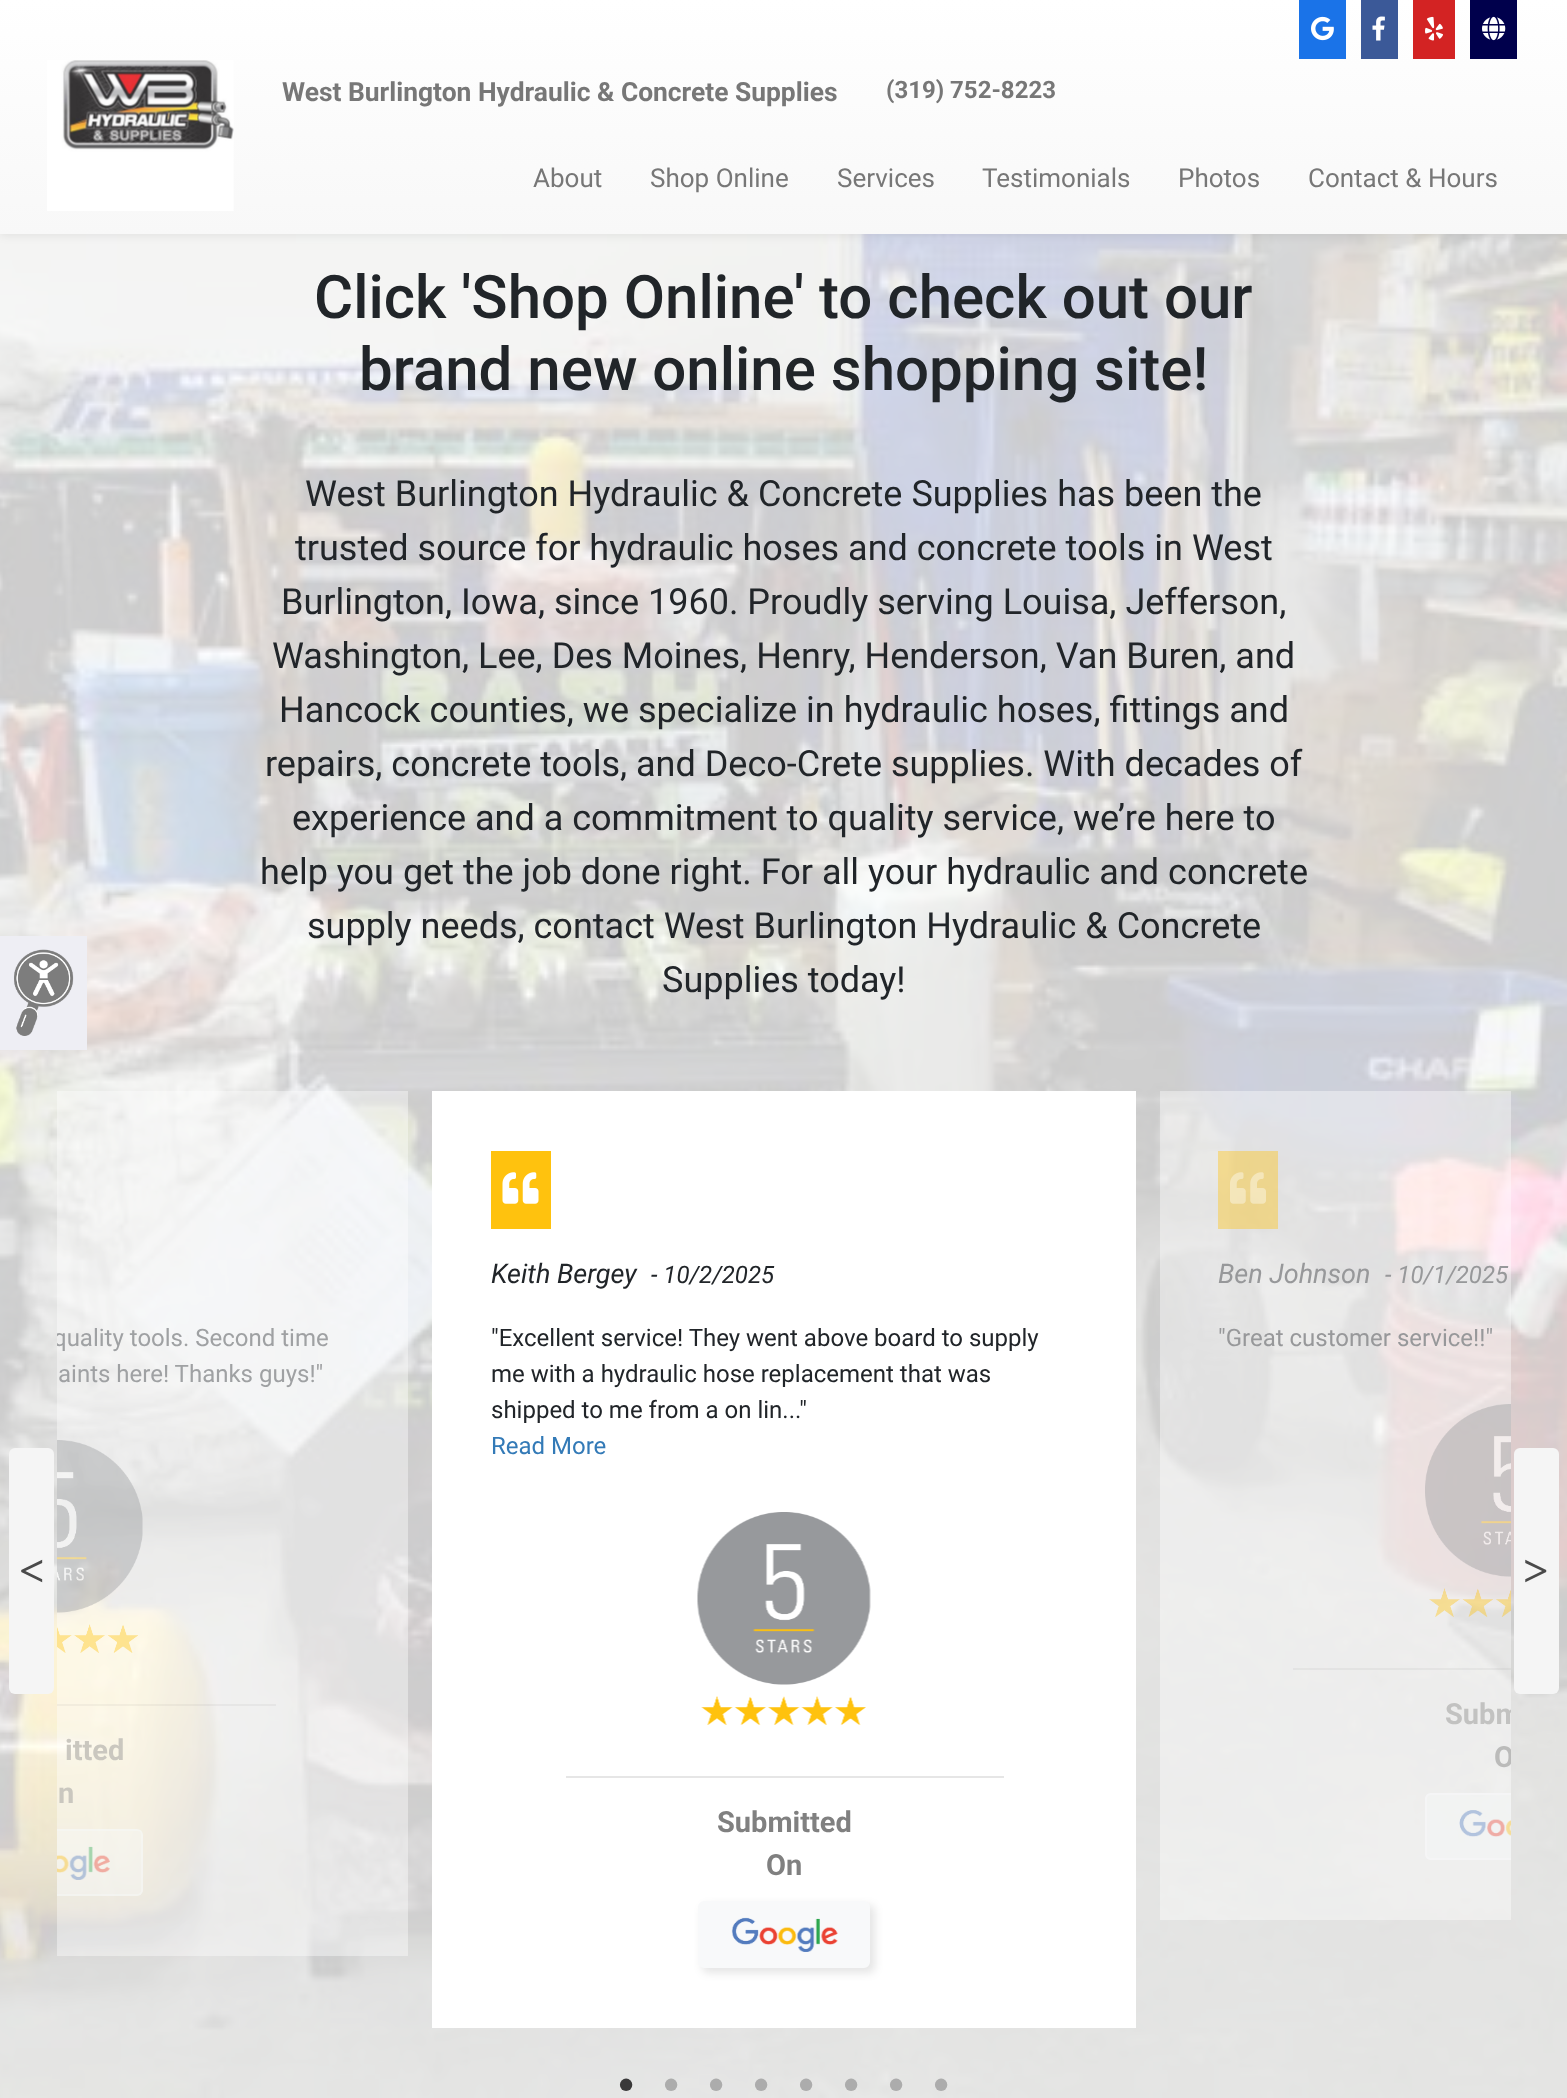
<!DOCTYPE html>
<meta charset="utf-8">
<style>body { margin: 0 } canvas { display: block }</style>
<canvas id="canvas" width="1567" height="2098"></canvas>
<script type="module">
  const canvas = document.getElementById("canvas");
  const g = canvas.getContext("2d");
  g.miterLimit = 4;
  g.fontKerning = "normal";
  function drawText(s, x, y, [font, color]) {
    g.font = font;
    g.fillStyle = color;
    g.fillText(s, x, y);
  }
  function fillBox(x, y, w, h, color) {
    g.fillStyle = color;
    g.fillRect(x, y, w, h);
  }
  function fillRounded(x, y, w, h, r, color) {
    g.fillStyle = color;
    g.beginPath();
    g.roundRect(x, y, w, h, r);
    g.fill();
  }
  async function drawPicture(src, x, y, w, h) {
    const img = new Image();
    img.src = src;
    await img.decode();
    g.drawImage(img, x, y, w, h);
  }
  let gradient;

  const s1 = ["bold 26.4px Roboto", "#777777"];
  const s2 = ["bold 24px Roboto", "#777777"];
  const s3 = ["26px Roboto", "#777777"];
  const s4 = ["500 60px Roboto", "#212529"];
  const s5 = ["36px Roboto", "#212529"];
  const s6 = ["bold 45px Liberation Serif", "#4A4A4A"];
  const s7 = ["24px Roboto", "#9FA1A3"];
  const s8 = ["bold 29px Roboto", "#CAC7BF"];
  const s9 = ["italic 27px Roboto", "#212529"];
  const s10 = ["italic 24px Roboto", "#212529"];
  const s11 = ["24px Roboto", "#212529"];
  const s12 = ["24px Roboto", "#337AB7"];
  const s13 = ["bold 29px Roboto", "#808080"];
  const s14 = ["italic 27px Roboto", "#97989A"];
  const s15 = ["italic 24px Roboto", "#97989A"];
  const s16 = ["24px Roboto", "#97989A"];
  const s17 = ["bold 29px Roboto", "#C2C2C1"];
  const s18 = ["bold 29px Roboto", "#BBBBBA"];
  const s19 = ["52px Liberation Serif", "#393939"];
  const s20 = ["52px Liberation Serif", "#ACACAC"];

  fillBox(0, 0, 1567, 2098, "#FFFFFF");
  await drawPicture("pic6.png", 0, 234, 1567, 1864);
  g.fillStyle = "rgba(0, 0, 0, 0.07)";
  g.filter = "blur(4px)";
  g.beginPath();
  g.rect(0, 2, 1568, 234);
  g.fill();
  g.filter = "none";
  gradient = g.createLinearGradient(784, 0, 784, 234);
  gradient.addColorStop(0, "#FFFFFF");
  gradient.addColorStop(1, "#F8F8F8");
  g.fillStyle = gradient;
  g.fillRect(0, 0, 1567, 234);
  await drawPicture("pic1.png", 47, 60, 187, 151);
  fillBox(1299, 0, 47, 59, "#1A73E8");
  await drawPicture("pic2.png", 1311, 16, 23, 25);
  fillBox(1361, 0, 37, 59, "#3B5998");
  await drawPicture("pic3.png", 1372, 16, 13, 25);
  fillBox(1413, 0, 42, 59, "#D32323");
  await drawPicture("pic4.png", 1425, 16, 18, 25);
  fillBox(1470, 0, 47, 59, "#00004C");
  await drawPicture("pic5.png", 1482, 16, 24, 25);
  drawText("West Burlington Hydraulic & Concrete Supplies", 282, 101, s1);
  drawText("(319) 752-8223", 886, 98, s2);
  drawText("About", 533, 187, s3);
  drawText("Shop Online", 650, 187, s3);
  drawText("Services", 837, 187, s3);
  drawText("Testimonials", 982, 187, s3);
  drawText("Photos", 1178, 187, s3);
  drawText("Contact & Hours", 1308, 187, s3);
  drawText("Click 'Shop Online' to check out our", 314, 318, s4);
  drawText("brand new online shopping site!", 359, 390, s4);
  drawText("West Burlington Hydraulic & Concrete Supplies has been the", 305, 506, s5);
  drawText("trusted source for hydraulic hoses and concrete tools in West", 295, 560, s5);
  drawText("Burlington, Iowa, since 1960. Proudly serving Louisa, Jefferson,", 281, 614, s5);
  drawText("Washington, Lee, Des Moines, Henry, Henderson, Van Buren, and", 272, 668, s5);
  drawText("Hancock counties, we specialize in hydraulic hoses, fittings and", 279, 722, s5);
  drawText("repairs, concrete tools, and Deco-Crete supplies. With decades of", 265, 776, s5);
  drawText("experience and a commitment to quality service, we’re here to", 292, 830, s5);
  drawText("help you get the job done right. For all your hydraulic and concrete", 260, 884, s5);
  drawText("supply needs, contact West Burlington Hydraulic & Concrete", 307, 938, s5);
  drawText("Supplies today!", 662, 992, s5);
  fillRounded(9, 1448, 45, 246, 6, "#F5F5F5");
  drawText("<", 19, 1586, s6);
  fillBox(57, 1091, 351, 865, "rgba(255, 255, 255, 0.4)");
  g.save();
  g.beginPath();
  g.rect(57, 1079, 1454, 985);
  g.clip();
  drawText("quality tools. Second time", 53, 1346, s7);
  g.restore();
  drawText("aints here! Thanks guys!\"", 58, 1382, s7);
  await drawPicture("pic7.png", 57, 1440, 86, 173);
  await drawPicture("pic8.png", 57, 1624, 81, 29);
  fillBox(57, 1704, 219, 2, "rgba(0, 0, 0, 0.04)");
  drawText("itted", 65, 1760, s8);
  drawText("n", 58, 1803, s8);
  g.fillStyle = "rgba(248, 249, 250, 0.4)";
  g.beginPath();
  g.roundRect(57, 1829, 86, 67, [0, 6, 6, 0]);
  g.fill();
  g.save();
  g.beginPath();
  g.rect(57, 1079, 1454, 985);
  g.clip();
  g.beginPath();
  g.roundRect(-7, 1830, 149, 65, 5);
  g.strokeStyle = "rgba(248, 249, 250, 0.4)";
  g.lineWidth = 2;
  g.stroke();
  g.restore();
  await drawPicture("pic9.png", 57, 1846, 53, 34);
  fillBox(432, 1091, 704, 937, "#FFFFFF");
  fillBox(491, 1151, 60, 78, "#FFC20E");
  await drawPicture("pic10.png", 502, 1172, 37, 32);
  drawText("Keith Bergey", 491, 1283, s9);
  drawText("- 10/2/2025", 651, 1283, s10);
  drawText("\"Excellent service! They went above board to supply", 491, 1346, s11);
  drawText("me with a hydraulic hose replacement that was", 491, 1382, s11);
  drawText("shipped to me from a on lin...\"", 491, 1418, s11);
  drawText("Read More", 491, 1454, s12);
  await drawPicture("pic11.png", 697, 1512, 174, 173);
  await drawPicture("pic12.png", 701, 1696, 165, 29);
  fillBox(566, 1776, 438, 2, "#E6E6E6");
  drawText("Submitted", 717, 1832, s13);
  drawText("On", 766, 1875, s13);
  g.fillStyle = "rgba(0, 0, 0, 0.1)";
  g.filter = "blur(4px)";
  g.beginPath();
  g.roundRect(702, 1905, 173, 68, 6);
  g.fill();
  g.filter = "none";
  g.fillStyle = "#F8F9FA";
  g.beginPath();
  g.roundRect(699, 1902, 170, 65, 5);
  g.fill();
  g.strokeStyle = "#F8F9FA";
  g.lineWidth = 2;
  g.stroke();
  await drawPicture("pic13.png", 731, 1917, 107, 35);
  fillBox(1160, 1091, 351, 829, "rgba(255, 255, 255, 0.4)");
  fillBox(1218, 1151, 60, 78, "rgba(255, 194, 14, 0.4)");
  await drawPicture("pic14.png", 1230, 1172, 36, 32);
  drawText("Ben Johnson", 1218, 1283, s14);
  drawText("- 10/1/2025", 1385, 1283, s15);
  drawText("\"Great customer service!!\"", 1218, 1346, s16);
  await drawPicture("pic15.png", 1425, 1404, 86, 173);
  await drawPicture("pic16.png", 1429, 1588, 82, 29);
  fillBox(1293, 1668, 218, 2, "rgba(0, 0, 0, 0.04)");
  g.save();
  g.beginPath();
  g.rect(57, 1079, 1454, 985);
  g.clip();
  drawText("Subm", 1445, 1724, s17);
  drawText("O", 1494, 1767, s18);
  g.restore();
  g.fillStyle = "rgba(248, 249, 250, 0.4)";
  g.beginPath();
  g.roundRect(1425, 1793, 86, 67, [6, 0, 0, 6]);
  g.fill();
  g.save();
  g.beginPath();
  g.rect(57, 1079, 1454, 985);
  g.clip();
  g.beginPath();
  g.roundRect(1426, 1794, 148, 65, 5);
  g.strokeStyle = "#F5F5F6";
  g.stroke();
  g.restore();
  await drawPicture("pic17.png", 1459, 1810, 52, 27);
  fillRounded(1514, 1448, 45, 246, 6, "#F5F5F5");
  drawText(">", 1523, 1586, s6);
  drawText("•", 617, 2102, s19);
  drawText("•", 662, 2102, s20);
  drawText("•", 707, 2102, s20);
  drawText("•", 752, 2102, s20);
  drawText("•", 797, 2102, s20);
  drawText("•", 842, 2102, s20);
  drawText("•", 887, 2102, s20);
  drawText("•", 932, 2102, s20);
  fillBox(0, 936, 87, 114, "#EEEEF4");
  await drawPicture("pic18.png", 14, 949, 60, 87);
</script>
